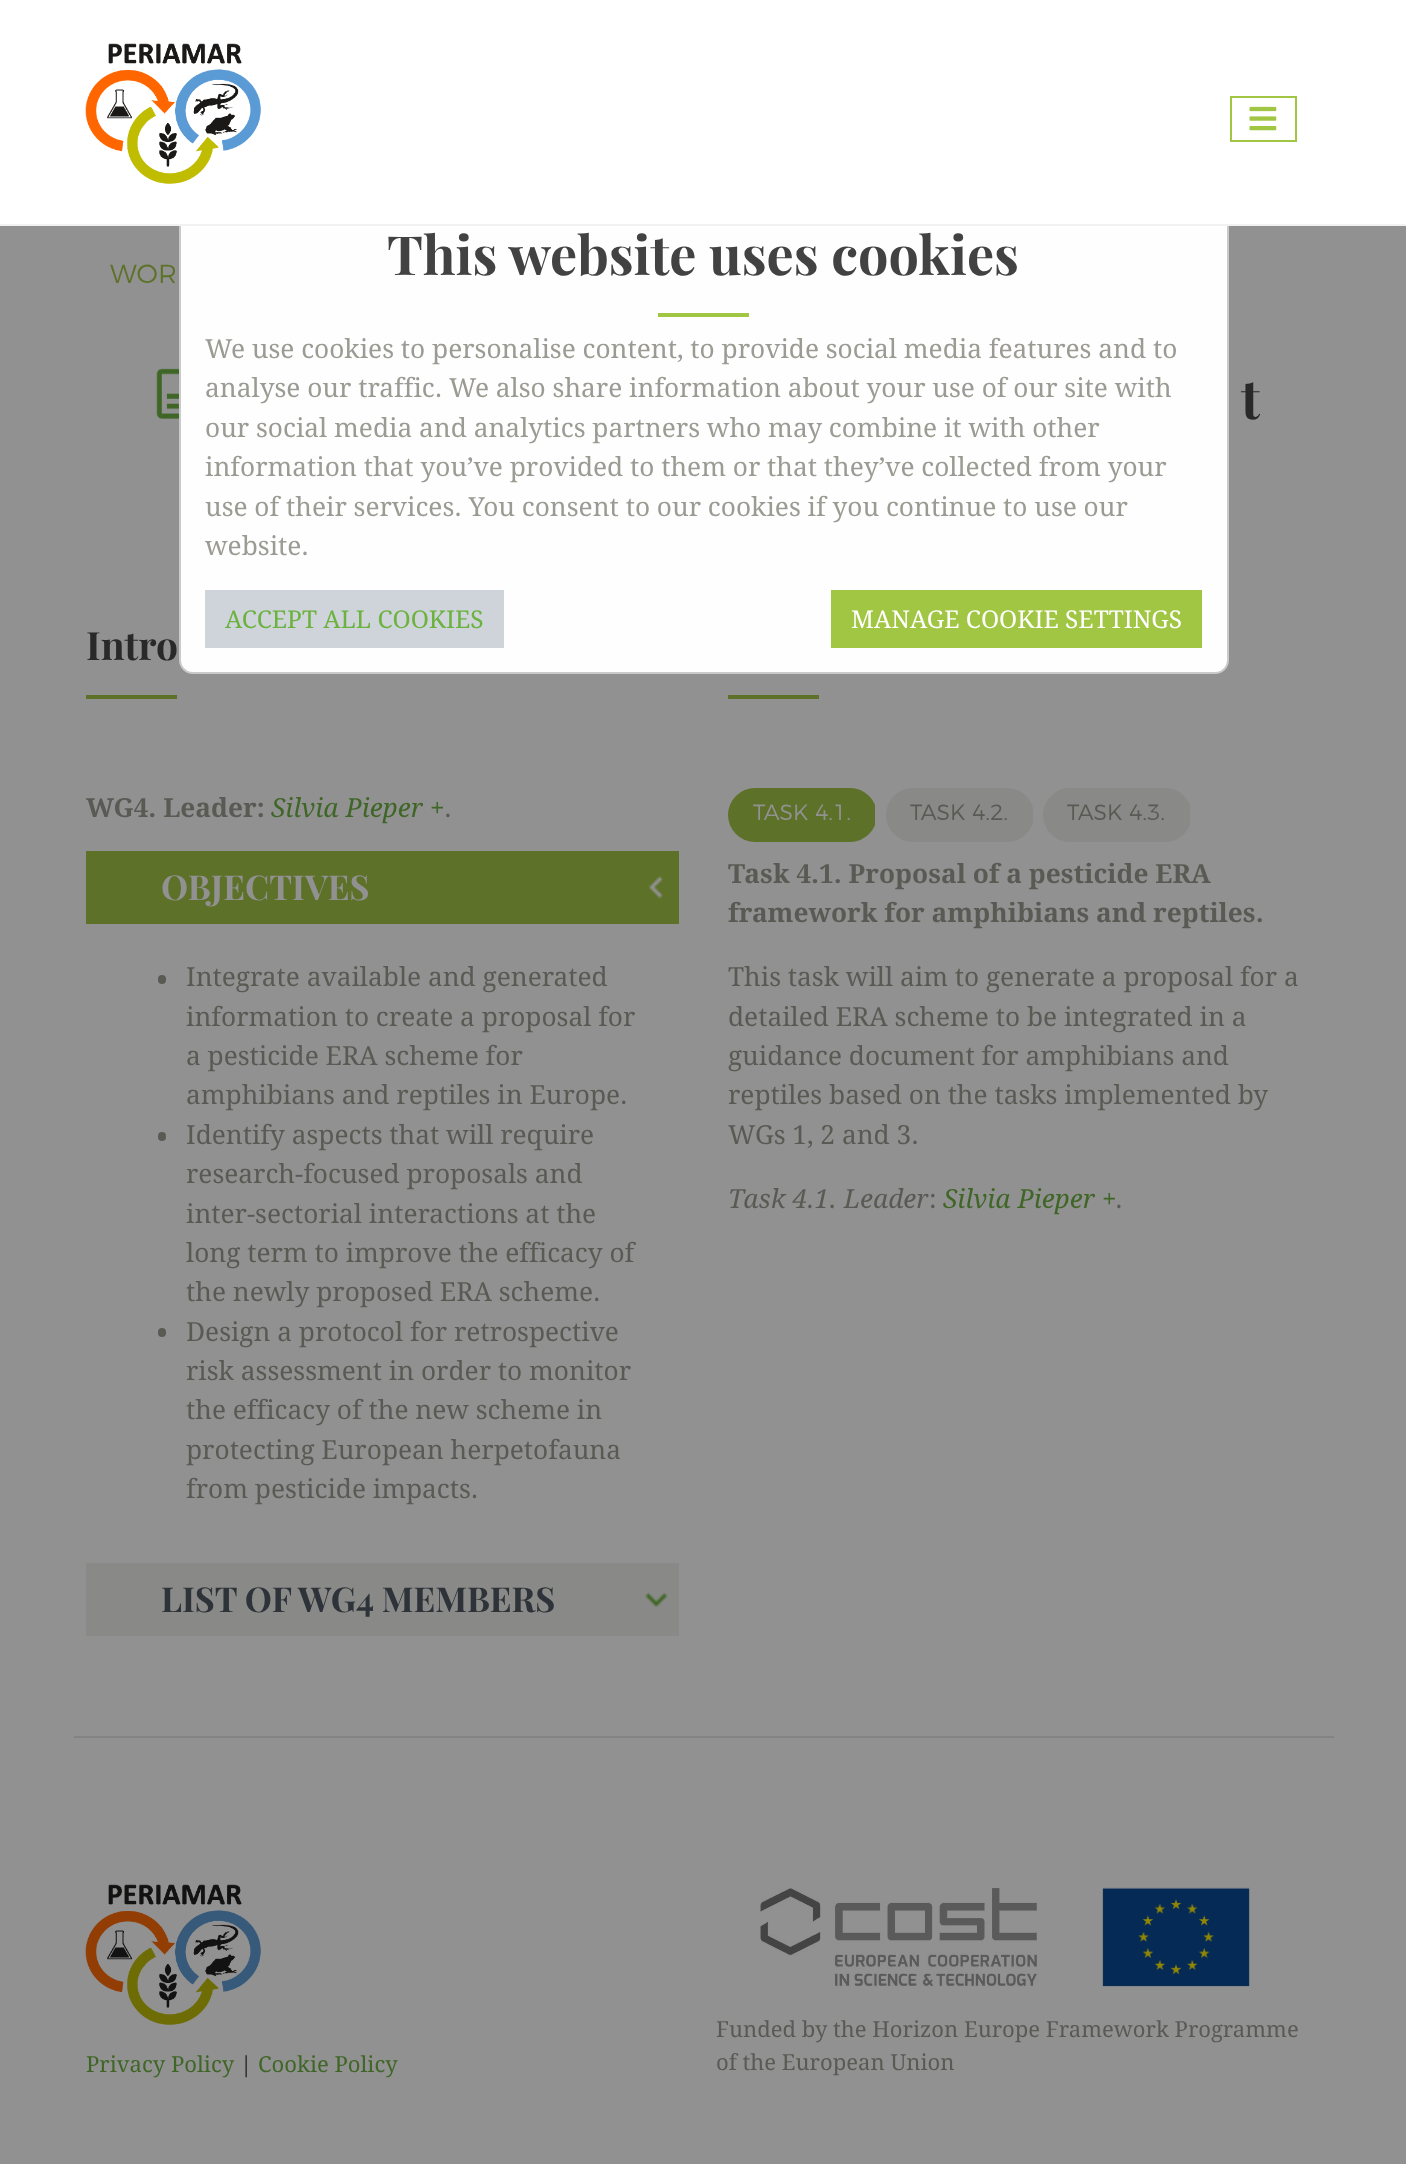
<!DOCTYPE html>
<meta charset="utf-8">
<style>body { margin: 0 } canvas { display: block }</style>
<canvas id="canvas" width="1406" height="2164"></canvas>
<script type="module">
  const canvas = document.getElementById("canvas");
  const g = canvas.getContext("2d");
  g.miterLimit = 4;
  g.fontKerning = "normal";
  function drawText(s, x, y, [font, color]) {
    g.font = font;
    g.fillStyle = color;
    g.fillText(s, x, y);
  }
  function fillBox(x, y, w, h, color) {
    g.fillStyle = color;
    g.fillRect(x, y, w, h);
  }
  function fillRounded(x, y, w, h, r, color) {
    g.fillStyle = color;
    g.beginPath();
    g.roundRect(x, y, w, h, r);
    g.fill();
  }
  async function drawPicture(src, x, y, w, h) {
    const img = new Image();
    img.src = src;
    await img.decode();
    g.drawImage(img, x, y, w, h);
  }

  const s1 = ["bold 53.9px Playfair Display", "#424242"];
  const s2 = ["26.25px Droid Serif", "#9B9B93"];
  const s3 = ["24.5px Droid Serif", "#6BB23F"];
  const s4 = ["24.5px Droid Serif", "#FFFFFF"];
  const s5 = ["300 26.25px Montserrat", "#5D7129"];
  const s6 = ["bold 53.9px Playfair Display", "#292929"];
  const s7 = ["bold 39px Playfair Display", "#292929"];
  const s8 = ["bold 26.25px Droid Serif", "#5A5A55"];
  const s9 = ["italic 26.25px Droid Serif", "#3F6627"];
  const s10 = ["italic 26.25px Droid Serif", "#5A5A55"];
  const s11 = ["bold 34.25px Playfair Display", "#919191"];
  const s12 = ["26.25px Droid Serif", "#5A5A55"];
  const s13 = ["bold 34.25px Playfair Display", "#2D3339"];
  const s14 = ["300 22.05px Montserrat", "#919191"];
  const s15 = ["300 22.05px Montserrat", "#5A5A55"];
  const s16 = ["22.05px Droid Serif", "#3F6627"];
  const s17 = ["22.05px Droid Serif", "#212428"];
  const s18 = ["22.05px Droid Serif", "#5A5A55"];

  fillBox(0, 0, 1406, 2164, "#919191");
  g.fillStyle = "#FEFEFE";
  g.beginPath();
  g.roundRect(180, 201, 1048, 472, 13);
  g.fill();
  g.strokeStyle = "#CACACA";
  g.lineWidth = 2;
  g.stroke();
  fillBox(0, 0, 1406, 224, "#FFFFFF");
  await drawPicture("pic1.png", 85, 43, 176, 141);
  g.strokeStyle = "#A1C643";
  g.strokeRect(1231, 97, 65, 44);
  await drawPicture("pic2.png", 1249, 106, 28, 25);
  fillBox(0, 224, 1406, 2, "#F1F2F3");
  drawText("This website uses cookies", 387, 275, s1);
  fillBox(658, 313, 91, 4, "#A1C643");
  drawText("We use cookies to personalise content, to provide social media features and to", 205, 358, s2);
  drawText("analyse our traffic. We also share information about your use of our site with", 205, 397, s2);
  drawText("our social media and analytics partners who may combine it with other", 205, 437, s2);
  drawText("information that you’ve provided to them or that they’ve collected from your", 205, 476, s2);
  drawText("use of their services. You consent to our cookies if you continue to use our", 205, 516, s2);
  drawText("website.", 205, 555, s2);
  fillBox(205, 590, 299, 58, "#CED4DA");
  drawText("ACCEPT ALL COOKIES", 225, 628, s3);
  fillBox(831, 590, 371, 58, "#A1C643");
  drawText("MANAGE COOKIE SETTINGS", 851, 628, s4);
  drawText("WOR", 110, 283, s5);
  await drawPicture("pic3.png", 156, 368, 23, 51);
  drawText("t", 1241, 419, s6);
  drawText("Intro", 86, 660, s7);
  fillBox(86, 695, 91, 4, "#5D7129");
  drawText("WG4. Leader:", 86, 817, s8);
  drawText("Silvia Pieper +", 271, 817, s9);
  drawText(".", 445, 817, s10);
  fillBox(86, 851, 593, 73, "#5D7129");
  await drawPicture("pic4.png", 648, 876, 16, 23);
  drawText("OBJECTIVES", 161, 900, s11);
  fillRounded(158, 975, 8, 9, 4, "#5A5A55");
  drawText("Integrate available and generated", 186, 986, s12);
  drawText("information to create a proposal for", 186, 1026, s12);
  drawText("a pesticide ERA scheme for", 186, 1065, s12);
  drawText("amphibians and reptiles in Europe.", 186, 1104, s12);
  fillRounded(158, 1132, 8, 9, 4, "#5A5A55");
  drawText("Identify aspects that will require", 186, 1144, s12);
  drawText("research-focused proposals and", 186, 1183, s12);
  drawText("inter-sectorial interactions at the", 186, 1223, s12);
  drawText("long term to improve the efficacy of", 186, 1262, s12);
  drawText("the newly proposed ERA scheme.", 186, 1301, s12);
  fillRounded(158, 1328, 8, 9, 4, "#5A5A55");
  drawText("Design a protocol for retrospective", 186, 1341, s12);
  drawText("risk assessment in order to monitor", 186, 1380, s12);
  drawText("the efficacy of the new scheme in", 186, 1419, s12);
  drawText("protecting European herpetofauna", 186, 1459, s12);
  drawText("from pesticide impacts.", 186, 1498, s12);
  fillBox(86, 1563, 593, 73, "#898987");
  await drawPicture("pic5.png", 645, 1592, 23, 15);
  drawText("LIST OF WG4 MEMBERS", 161, 1612, s13);
  fillBox(728, 695, 91, 4, "#5D7129");
  fillRounded(728, 788, 149, 54, 27, "#5D7129");
  fillBox(875, 802, 2, 26, "#919191");
  drawText("TASK 4.1.", 753, 820, s14);
  fillRounded(886, 788, 148, 54, 27, "#898987");
  fillBox(1033, 802, 1, 26, "#919191");
  drawText("TASK 4.2.", 910, 820, s15);
  fillRounded(1043, 788, 149, 54, 27, "#898987");
  fillBox(1190, 802, 2, 26, "#919191");
  drawText("TASK 4.3.", 1067, 820, s15);
  drawText("Task 4.1. Proposal of a pesticide ERA", 728, 883, s8);
  drawText("framework for amphibians and reptiles.", 728, 922, s8);
  drawText("This task will aim to generate a proposal for a", 728, 986, s12);
  drawText("detailed ERA scheme to be integrated in a", 728, 1026, s12);
  drawText("guidance document for amphibians and", 728, 1065, s12);
  drawText("reptiles based on the tasks implemented by", 728, 1104, s12);
  drawText("WGs 1, 2 and 3.", 728, 1144, s12);
  drawText("Task 4.1. Leader", 728, 1208, s10);
  drawText(":", 929, 1208, s12);
  drawText("Silvia Pieper +", 943, 1208, s9);
  drawText(".", 1116, 1208, s10);
  fillBox(74, 1736, 1260, 2, "#838383");
  await drawPicture("pic6.png", 85, 1884, 176, 141);
  drawText("Privacy Policy", 86, 2072, s16);
  drawText("|", 240, 2072, s17);
  drawText("Cookie Policy", 258, 2072, s16);
  await drawPicture("pic7.png", 760, 1888, 278, 99);
  await drawPicture("pic8.png", 1102, 1887, 148, 100);
  drawText("Funded by the Horizon Europe Framework Programme", 716, 2037, s18);
  drawText("of the European Union", 716, 2070, s18);
</script>
